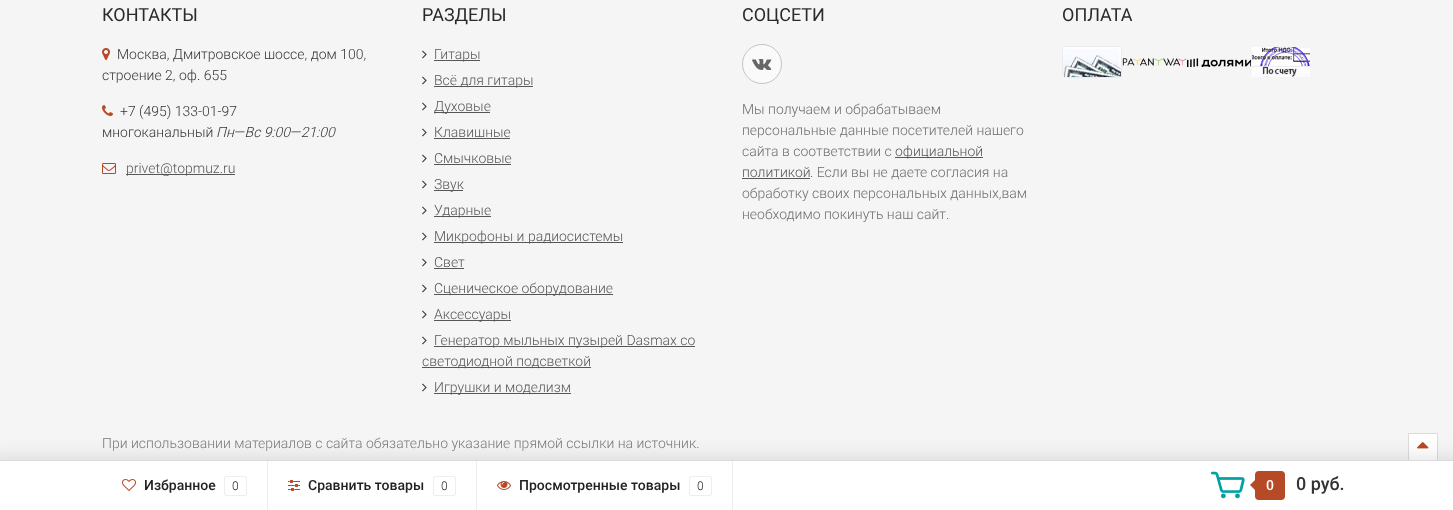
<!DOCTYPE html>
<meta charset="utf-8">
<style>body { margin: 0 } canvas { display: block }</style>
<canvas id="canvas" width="1453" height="510"></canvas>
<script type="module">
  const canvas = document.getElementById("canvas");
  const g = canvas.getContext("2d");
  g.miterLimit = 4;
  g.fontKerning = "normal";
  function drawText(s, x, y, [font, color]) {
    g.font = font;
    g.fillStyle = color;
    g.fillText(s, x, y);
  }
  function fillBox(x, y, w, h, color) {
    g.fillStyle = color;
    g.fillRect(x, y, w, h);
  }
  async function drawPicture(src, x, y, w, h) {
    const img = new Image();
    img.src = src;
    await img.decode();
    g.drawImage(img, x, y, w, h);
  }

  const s1 = ["18px Roboto", "#2A2A2A"];
  const s2 = ["300 14px Roboto", "#333333"];
  const s3 = ["italic 300 14px Roboto", "#333333"];
  const s4 = ["300 14px Roboto", "#575757"];
  const s5 = ["300 14px Roboto", "#6D6D6D"];
  const s6 = ["300 14px Roboto", "#7A7A7A"];
  const s7 = ["500 14px Roboto", "#222222"];
  const s8 = ["300 12px Roboto", "#222222"];
  const s9 = ["500 14px Roboto", "#FFFFFF"];
  const s10 = ["500 18px Roboto", "#333333"];

  fillBox(0, 0, 1453, 510, "#F5F5F5");
  drawText("КОНТАКТЫ", 102, 21, s1);
  await drawPicture("pic1.png", 102, 48, 8, 12);
  drawText("Москва, Дмитровское шоссе, дом 100,", 117, 59, s2);
  drawText("строение 2, оф. 655", 102, 80, s2);
  await drawPicture("pic2.png", 102, 105, 11, 11);
  drawText("+7 (495) 133-01-97", 120, 116, s2);
  drawText("многоканальный", 102, 137, s2);
  drawText("Пн—Вс 9:00—21:00", 216, 137, s3);
  await drawPicture("pic3.png", 102, 163, 14, 11);
  fillBox(126, 174, 109, 1, "#575757");
  drawText("privet@topmuz.ru", 126, 173, s4);
  drawText("РАЗДЕЛЫ", 422, 21, s1);
  await drawPicture("pic4.png", 422, 50, 5, 9);
  fillBox(434, 60, 46, 1, "#575757");
  drawText("Гитары", 434, 59, s4);
  await drawPicture("pic4.png", 422, 76, 5, 9);
  fillBox(434, 86, 99, 1, "#575757");
  drawText("Всё для гитары", 434, 85, s4);
  await drawPicture("pic4.png", 422, 102, 5, 9);
  fillBox(434, 112, 56, 1, "#575757");
  drawText("Духовые", 434, 111, s4);
  await drawPicture("pic4.png", 422, 128, 5, 9);
  drawText("Клавишные", 434, 137, s4);
  fillBox(434, 138, 76, 1, "#575757");
  await drawPicture("pic4.png", 422, 154, 5, 9);
  drawText("Смычковые", 434, 163, s4);
  fillBox(434, 164, 77, 1, "#575757");
  await drawPicture("pic4.png", 422, 180, 5, 9);
  fillBox(434, 190, 29, 1, "#575757");
  drawText("Звук", 434, 189, s4);
  await drawPicture("pic4.png", 422, 206, 5, 9);
  fillBox(434, 216, 57, 1, "#575757");
  drawText("Ударные", 434, 215, s4);
  await drawPicture("pic4.png", 422, 232, 5, 9);
  fillBox(434, 242, 189, 1, "#575757");
  drawText("Микрофоны и радиосистемы", 434, 241, s4);
  await drawPicture("pic4.png", 422, 258, 5, 9);
  drawText("Свет", 434, 267, s4);
  fillBox(434, 268, 30, 1, "#575757");
  await drawPicture("pic4.png", 422, 284, 5, 9);
  fillBox(434, 294, 179, 1, "#575757");
  drawText("Сценическое оборудование", 434, 293, s4);
  await drawPicture("pic4.png", 422, 310, 5, 9);
  fillBox(434, 320, 77, 1, "#575757");
  drawText("Аксессуары", 434, 319, s4);
  await drawPicture("pic4.png", 422, 336, 5, 9);
  fillBox(434, 346, 261, 1, "#575757");
  drawText("Генератор мыльных пузырей Dasmax со", 434, 345, s4);
  fillBox(422, 367, 169, 1, "#575757");
  drawText("светодиодной подсветкой", 422, 366, s4);
  await drawPicture("pic4.png", 422, 383, 5, 9);
  fillBox(434, 393, 137, 1, "#575757");
  drawText("Игрушки и моделизм", 434, 392, s4);
  drawText("СОЦСЕТИ", 742, 21, s1);
  g.fillStyle = "#FAFAFA";
  g.beginPath();
  g.arc(762, 64, 19.5, 0, Math.PI * 2);
  g.fill();
  g.strokeStyle = "#C4C4C4";
  g.stroke();
  await drawPicture("pic5.png", 752, 59, 20, 11);
  drawText("Мы получаем и обрабатываем", 742, 114, s5);
  drawText("персональные данные посетителей нашего", 742, 135, s5);
  drawText("сайта в соответствии с", 742, 156, s5);
  fillBox(895, 157, 88, 1, "#575757");
  drawText("официальной", 895, 156, s4);
  drawText("политикой", 742, 177, s4);
  fillBox(742, 178, 68, 1, "#575757");
  drawText(". Если вы не даете согласия на", 810, 177, s5);
  drawText("обработку своих персональных данных,вам", 742, 198, s5);
  drawText("необходимо покинуть наш сайт.", 742, 219, s5);
  drawText("ОПЛАТА", 1062, 21, s1);
  await drawPicture("pic6.png", 1062, 46, 60, 32);
  await drawPicture("pic7.png", 1122, 58, 65, 8);
  await drawPicture("pic8.png", 1187, 58, 64, 9);
  await drawPicture("pic9.png", 1252, 47, 58, 30);
  drawText("При использовании материалов с сайта обязательно указание прямой ссылки на источник.", 102, 448, s6);
  g.fillStyle = "#FFFFFF";
  g.beginPath();
  g.rect(1408.5, 433.5, 29, 27);
  g.fill();
  g.strokeStyle = "#DBDBDB";
  g.stroke();
  await drawPicture("pic10.png", 1417, 442, 12, 7);
  g.fillStyle = "rgba(50, 50, 50, 0.15)";
  g.filter = "blur(10px)";
  g.beginPath();
  g.rect(-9, 458, 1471, 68);
  g.fill();
  g.filter = "none";
  fillBox(0, 461, 1453, 49, "#FFFFFF");
  fillBox(0, 460, 1453, 1, "#DBDBDB");
  fillBox(267, 461, 1, 49, "#EDEDED");
  await drawPicture("pic11.png", 122, 479, 14, 12);
  drawText("Избранное", 144, 490, s7);
  g.beginPath();
  g.roundRect(224.5, 476.5, 22, 19, 1.5);
  g.strokeStyle = "#EEEEEE";
  g.stroke();
  drawText("0", 232, 490, s8);
  fillBox(476, 461, 1, 49, "#EDEDED");
  await drawPicture("pic12.png", 288, 480, 12, 11);
  drawText("Сравнить товары", 308, 490, s7);
  g.beginPath();
  g.roundRect(433.5, 476.5, 22, 19, 1.5);
  g.stroke();
  drawText("0", 441, 490, s8);
  fillBox(732, 461, 1, 49, "#EDEDED");
  await drawPicture("pic13.png", 497, 481, 14, 9);
  drawText("Просмотренные товары", 519, 490, s7);
  g.beginPath();
  g.roundRect(689.5, 476.5, 22, 19, 1.5);
  g.stroke();
  drawText("0", 697, 490, s8);
  await drawPicture("pic14.png", 1211, 471, 34, 28);
  g.fillStyle = "#B64926";
  g.beginPath();
  g.roundRect(1257, 473, 26, 25, 2);
  g.fill();
  g.strokeStyle = "#B64926";
  g.lineWidth = 4;
  g.stroke();
  g.beginPath();
  g.moveTo(1259, 476);
  g.lineTo(1259, 494);
  g.lineTo(1250, 485);
  g.closePath();
  g.fill();
  drawText("0", 1266, 490, s9);
  drawText("0 руб.", 1296, 490, s10);
</script>
